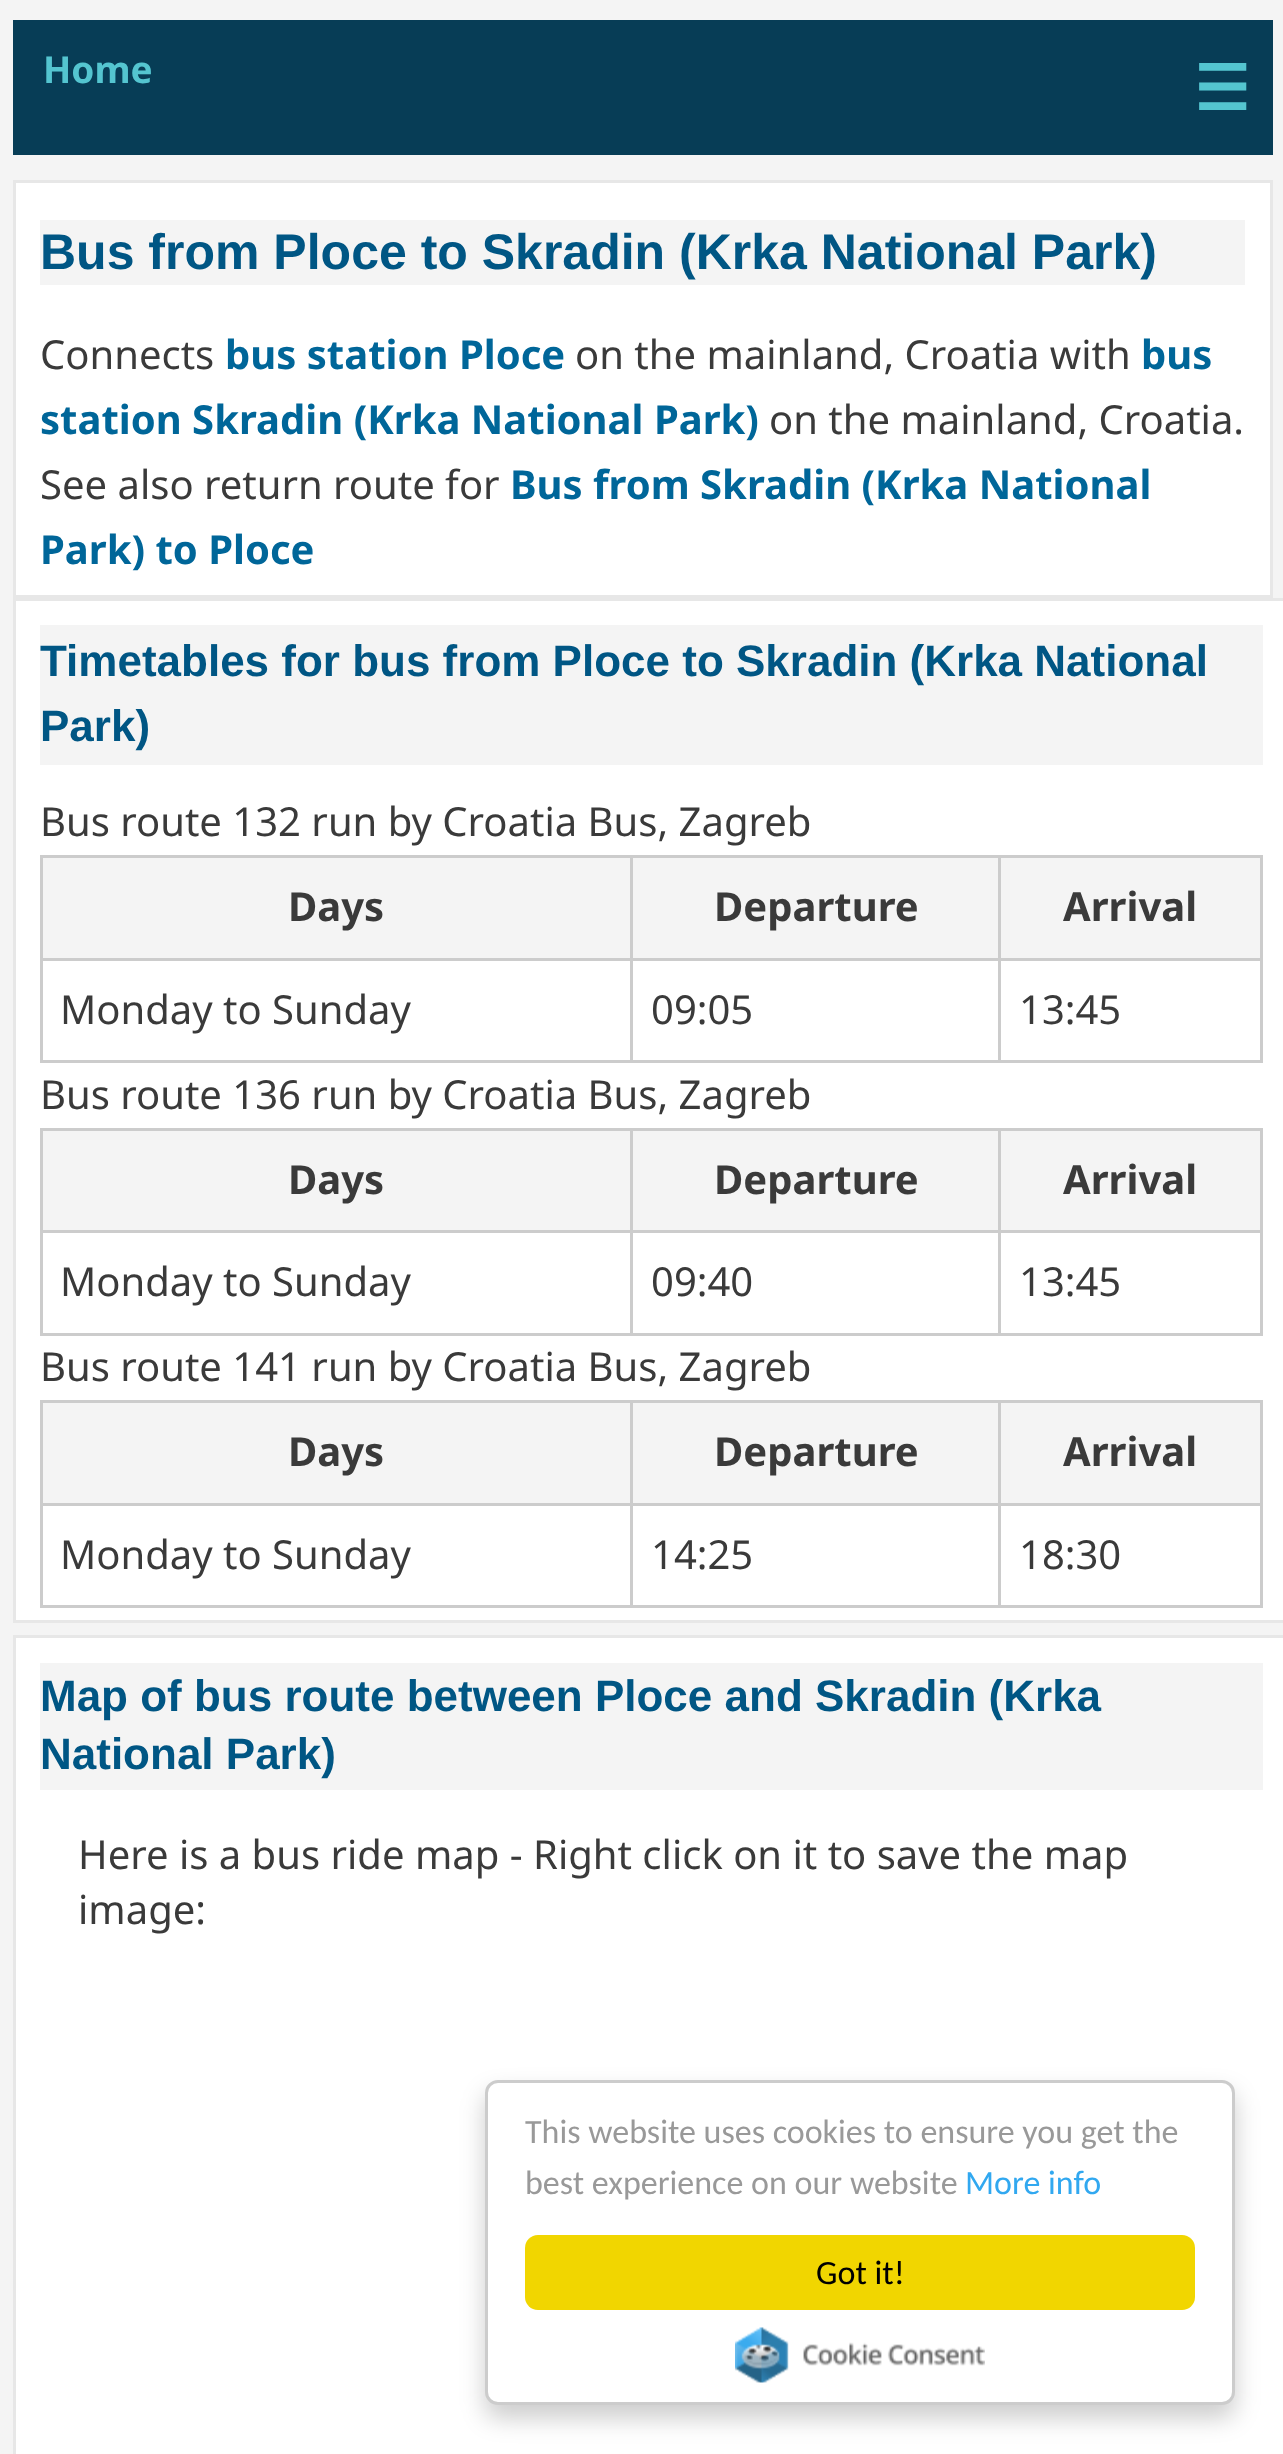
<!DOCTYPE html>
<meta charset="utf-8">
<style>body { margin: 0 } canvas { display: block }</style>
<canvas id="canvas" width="1283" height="2454"></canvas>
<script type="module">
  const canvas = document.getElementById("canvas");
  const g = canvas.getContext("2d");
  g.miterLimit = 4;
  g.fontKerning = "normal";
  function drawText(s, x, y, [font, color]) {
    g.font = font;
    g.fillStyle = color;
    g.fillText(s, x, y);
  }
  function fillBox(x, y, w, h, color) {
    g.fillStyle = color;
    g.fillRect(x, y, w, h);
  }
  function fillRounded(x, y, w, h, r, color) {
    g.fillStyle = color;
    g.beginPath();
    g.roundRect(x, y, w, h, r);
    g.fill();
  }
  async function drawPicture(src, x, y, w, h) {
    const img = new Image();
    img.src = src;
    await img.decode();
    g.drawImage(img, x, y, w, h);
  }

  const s1 = ["bold 37px Noto Sans", "#54C5D0"];
  const s2 = ["bold 62px DejaVu Sans", "#54C5D0"];
  const s3 = ["bold 50px Liberation Sans", "#005684"];
  const s4 = ["40px Noto Sans", "#3A3A3A"];
  const s5 = ["bold 40px Noto Sans", "#006699"];
  const s6 = ["bold 44px Liberation Sans", "#005684"];
  const s7 = ["bold 40px Noto Sans", "#3A3A3A"];
  const s8 = ["34px Carlito", "#999999"];
  const s9 = ["34px Carlito", "#31A8F0"];
  const s10 = ["34px Carlito", "#000000"];

  fillBox(0, 0, 1283, 2454, "#F4F4F4");
  fillBox(13, 20, 1260, 135, "#073D56");
  drawText("Home", 43, 83, s1);
  drawText("☰", 1194, 110, s2);
  g.fillStyle = "#FFFFFF";
  g.beginPath();
  g.rect(14.5, 181.5, 1257, 415);
  g.fill();
  g.strokeStyle = "#E7E7E7";
  g.lineWidth = 3;
  g.stroke();
  fillBox(40, 220, 1205, 65, "#F4F4F4");
  drawText("Bus from Ploce to Skradin (Krka National Park)", 40, 269, s3);
  drawText("Connects", 40, 369, s4);
  drawText("bus station Ploce", 225, 369, s5);
  drawText("on the mainland, Croatia with", 575, 369, s4);
  drawText("bus", 1141, 369, s5);
  drawText("station Skradin (Krka National Park)", 40, 434, s5);
  drawText("on the mainland, Croatia.", 769, 434, s4);
  drawText("See also return route for", 40, 499, s4);
  drawText("Bus from Skradin (Krka National", 510, 499, s5);
  drawText("Park) to Ploce", 40, 564, s5);
  g.fillStyle = "#FFFFFF";
  g.beginPath();
  g.rect(14.5, 599.5, 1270, 1022);
  g.fill();
  g.stroke();
  fillBox(40, 625, 1223, 140, "#F4F4F4");
  drawText("Timetables for bus from Ploce to Skradin (Krka National", 40, 676, s6);
  drawText("Park)", 40, 741, s6);
  drawText("Bus route 132 run by Croatia Bus, Zagreb", 40, 836, s4);
  fillBox(43, 858, 587, 100, "#F4F4F4");
  fillBox(998, 855, 265, 3, "#CCCCCC");
  fillBox(998, 958, 265, 3, "#CCCCCC");
  fillBox(1260, 958, 3, 105, "#CCCCCC");
  fillBox(998, 1060, 265, 3, "#CCCCCC");
  fillBox(998, 958, 3, 105, "#CCCCCC");
  fillBox(630, 958, 370, 3, "#CCCCCC");
  fillBox(998, 855, 3, 105, "#CCCCCC");
  fillBox(630, 855, 370, 3, "#CCCCCC");
  fillBox(630, 1060, 370, 3, "#CCCCCC");
  fillBox(630, 958, 3, 105, "#CCCCCC");
  fillBox(40, 958, 593, 3, "#CCCCCC");
  fillBox(630, 855, 3, 105, "#CCCCCC");
  fillBox(40, 855, 593, 3, "#CCCCCC");
  fillBox(40, 1060, 593, 3, "#CCCCCC");
  fillBox(40, 958, 3, 105, "#CCCCCC");
  fillBox(40, 855, 3, 105, "#CCCCCC");
  drawText("Days", 288, 921, s7);
  fillBox(633, 858, 365, 100, "#F4F4F4");
  drawText("Departure", 714, 921, s7);
  fillBox(1001, 858, 259, 100, "#F4F4F4");
  fillBox(1260, 855, 3, 105, "#CCCCCC");
  drawText("Arrival", 1063, 921, s7);
  drawText("Monday to Sunday", 60, 1024, s4);
  drawText("09:05", 651, 1024, s4);
  drawText("13:45", 1019, 1024, s4);
  drawText("Bus route 136 run by Croatia Bus, Zagreb", 40, 1109, s4);
  fillBox(43, 1131, 587, 99, "#F4F4F4");
  fillBox(998, 1128, 265, 3, "#CCCCCC");
  fillBox(998, 1230, 265, 3, "#CCCCCC");
  fillBox(1260, 1230, 3, 105, "#CCCCCC");
  fillBox(998, 1333, 265, 3, "#CCCCCC");
  fillBox(998, 1230, 3, 105, "#CCCCCC");
  fillBox(630, 1230, 370, 3, "#CCCCCC");
  fillBox(998, 1128, 3, 105, "#CCCCCC");
  fillBox(630, 1128, 370, 3, "#CCCCCC");
  fillBox(630, 1333, 370, 3, "#CCCCCC");
  fillBox(630, 1230, 3, 105, "#CCCCCC");
  fillBox(40, 1230, 593, 3, "#CCCCCC");
  fillBox(630, 1128, 3, 105, "#CCCCCC");
  fillBox(40, 1128, 593, 3, "#CCCCCC");
  fillBox(40, 1333, 593, 3, "#CCCCCC");
  fillBox(40, 1230, 3, 105, "#CCCCCC");
  fillBox(40, 1128, 3, 105, "#CCCCCC");
  drawText("Days", 288, 1194, s7);
  fillBox(633, 1131, 365, 99, "#F4F4F4");
  drawText("Departure", 714, 1194, s7);
  fillBox(1001, 1131, 259, 99, "#F4F4F4");
  fillBox(1260, 1128, 3, 105, "#CCCCCC");
  drawText("Arrival", 1063, 1194, s7);
  drawText("Monday to Sunday", 60, 1296, s4);
  drawText("09:40", 651, 1296, s4);
  drawText("13:45", 1019, 1296, s4);
  drawText("Bus route 141 run by Croatia Bus, Zagreb", 40, 1381, s4);
  fillBox(43, 1403, 587, 100, "#F4F4F4");
  fillBox(998, 1400, 265, 3, "#CCCCCC");
  fillBox(998, 1503, 265, 3, "#CCCCCC");
  fillBox(1260, 1503, 3, 105, "#CCCCCC");
  fillBox(998, 1605, 265, 3, "#CCCCCC");
  fillBox(998, 1503, 3, 105, "#CCCCCC");
  fillBox(630, 1503, 370, 3, "#CCCCCC");
  fillBox(998, 1400, 3, 105, "#CCCCCC");
  fillBox(630, 1400, 370, 3, "#CCCCCC");
  fillBox(630, 1605, 370, 3, "#CCCCCC");
  fillBox(630, 1503, 3, 105, "#CCCCCC");
  fillBox(40, 1503, 593, 3, "#CCCCCC");
  fillBox(630, 1400, 3, 105, "#CCCCCC");
  fillBox(40, 1400, 593, 3, "#CCCCCC");
  fillBox(40, 1605, 593, 3, "#CCCCCC");
  fillBox(40, 1503, 3, 105, "#CCCCCC");
  fillBox(40, 1400, 3, 105, "#CCCCCC");
  drawText("Days", 288, 1466, s7);
  fillBox(633, 1403, 365, 100, "#F4F4F4");
  drawText("Departure", 714, 1466, s7);
  fillBox(1001, 1403, 259, 100, "#F4F4F4");
  fillBox(1260, 1400, 3, 105, "#CCCCCC");
  drawText("Arrival", 1063, 1466, s7);
  drawText("Monday to Sunday", 60, 1569, s4);
  drawText("14:25", 651, 1569, s4);
  drawText("18:30", 1019, 1569, s4);
  g.fillStyle = "#FFFFFF";
  g.beginPath();
  g.rect(14.5, 1636.5, 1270, 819);
  g.fill();
  g.stroke();
  fillBox(40, 1663, 1223, 127, "#F4F4F4");
  drawText("Map of bus route between Ploce and Skradin (Krka", 40, 1711, s6);
  drawText("National Park)", 40, 1769, s6);
  drawText("Here is a bus ride map - Right click on it to save the map", 78, 1869, s4);
  drawText("image:", 78, 1924, s4);
  g.fillStyle = "rgba(0, 0, 0, 0.2)";
  g.filter = "blur(12.5px)";
  g.beginPath();
  g.roundRect(485, 2093, 750, 325, 13);
  g.fill();
  g.filter = "none";
  g.fillStyle = "#FFFFFF";
  g.beginPath();
  g.roundRect(486.5, 2081.5, 747, 322, 11.5);
  g.fill();
  g.strokeStyle = "#CCCCCC";
  g.stroke();
  drawText("This website uses cookies to ensure you get the", 525, 2143, s8);
  drawText("best experience on our website", 525, 2194, s8);
  drawText("More info", 965, 2194, s9);
  fillRounded(525, 2235, 670, 75, 13, "#F1D600");
  drawText("Got it!", 816, 2284, s10);
  await drawPicture("pic1.png", 735, 2327, 250, 56);
</script>
